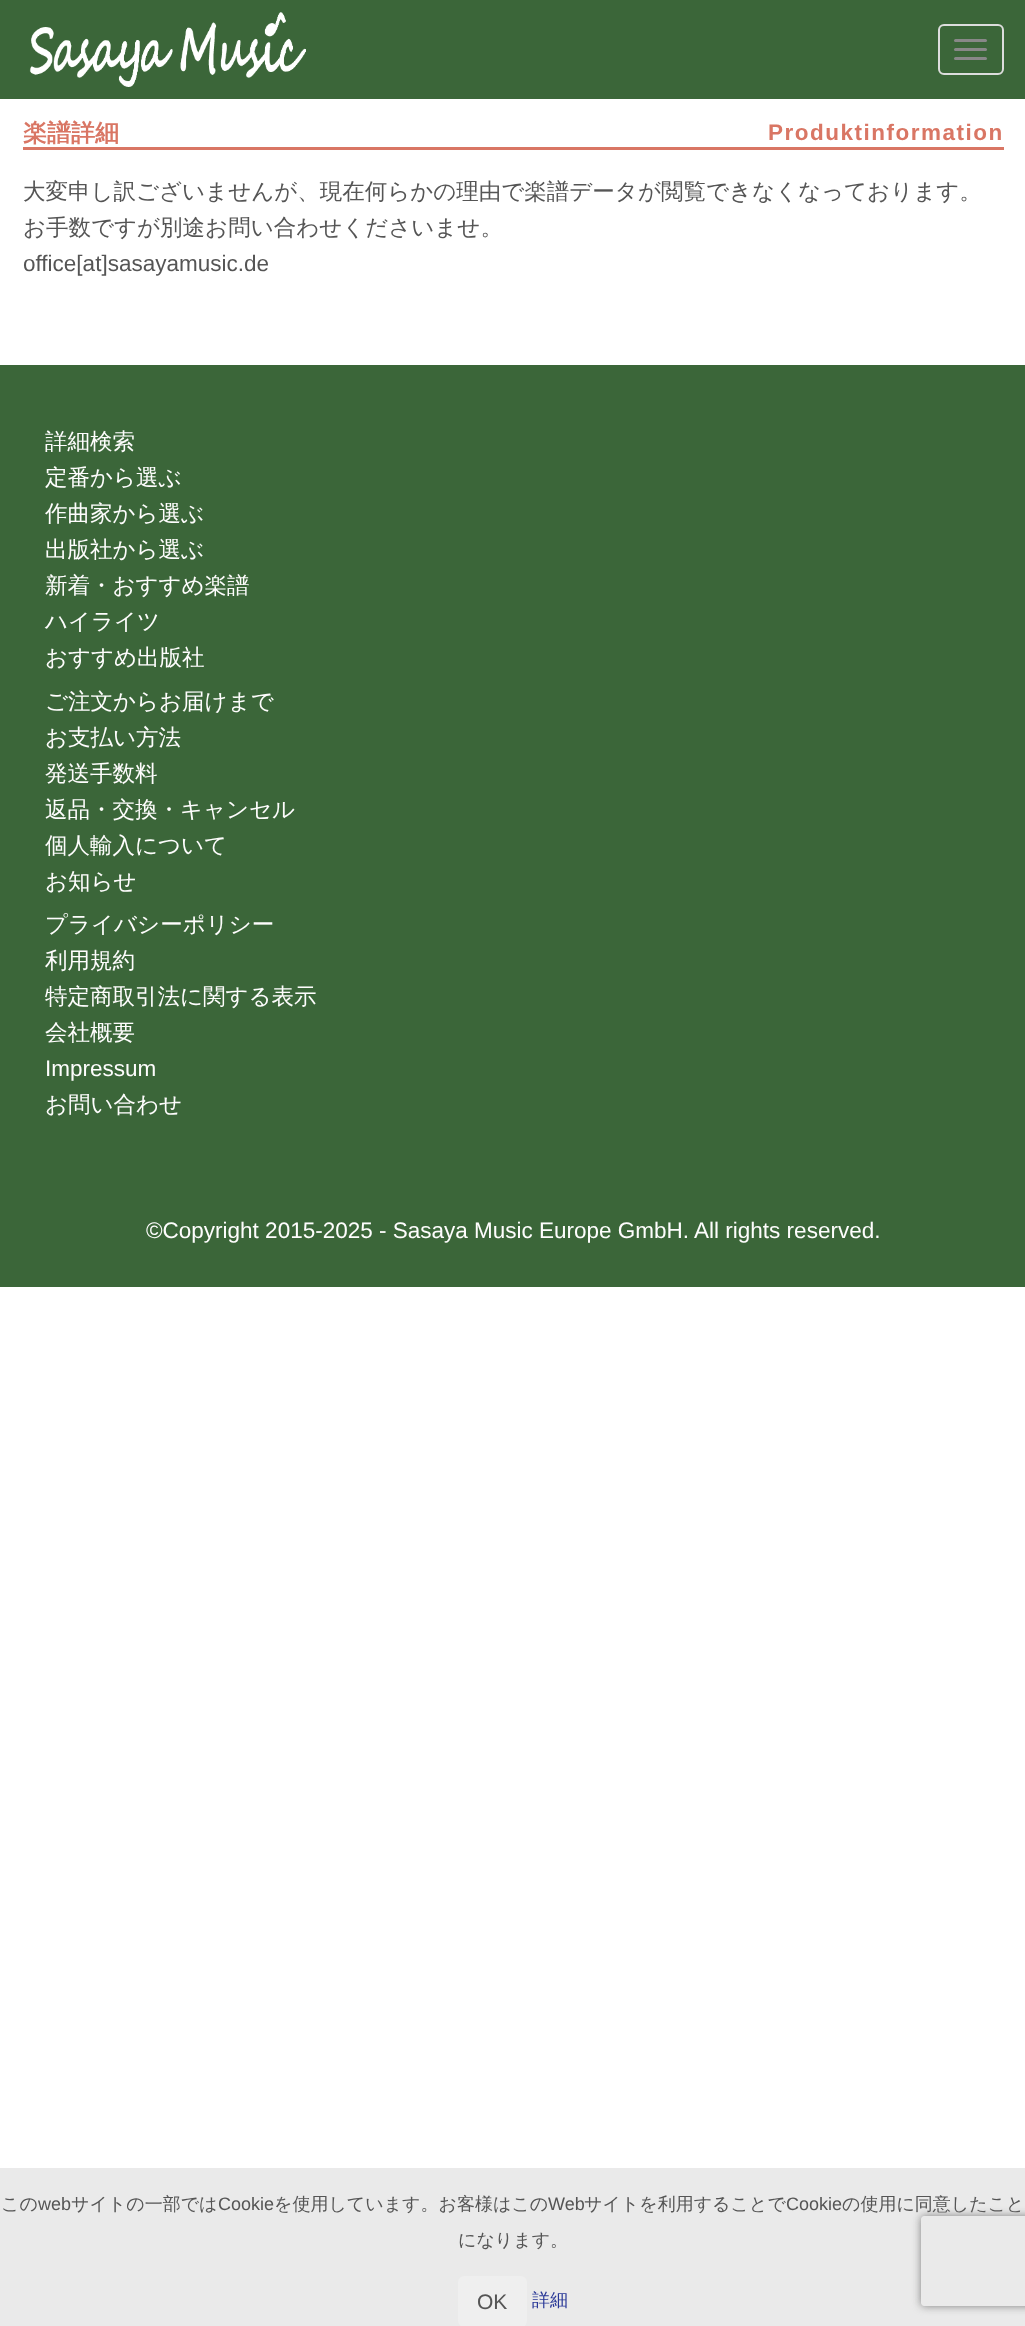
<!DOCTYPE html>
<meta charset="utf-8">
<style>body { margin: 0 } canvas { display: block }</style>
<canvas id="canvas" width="1025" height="2326"></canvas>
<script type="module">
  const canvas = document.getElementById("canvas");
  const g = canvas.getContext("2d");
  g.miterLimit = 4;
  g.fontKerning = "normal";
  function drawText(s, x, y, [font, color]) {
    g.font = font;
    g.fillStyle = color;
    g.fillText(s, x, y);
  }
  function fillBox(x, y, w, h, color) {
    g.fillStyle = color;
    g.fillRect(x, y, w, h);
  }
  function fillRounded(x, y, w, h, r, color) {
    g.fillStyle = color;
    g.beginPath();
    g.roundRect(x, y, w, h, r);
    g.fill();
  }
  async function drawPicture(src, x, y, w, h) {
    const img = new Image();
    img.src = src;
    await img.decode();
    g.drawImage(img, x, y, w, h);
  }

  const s1 = ["bold 24px WenQuanYi Zen Hei", "#D97664"];
  const s2 = ["bold 22.5px Liberation Sans", "#D97664"];
  const s3 = ["500 22.5px WenQuanYi Zen Hei", "#555555"];
  const s4 = ["22.5px Liberation Sans", "#555555"];
  const s5 = ["500 22.5px WenQuanYi Zen Hei", "#FEFDFD"];
  const s6 = ["22.5px Liberation Sans", "#FEFDFD"];
  const s7 = ["500 18px WenQuanYi Zen Hei", "#555555"];
  const s8 = ["18px Liberation Sans", "#555555"];
  const s9 = ["21px Liberation Sans", "#555555"];
  const s10 = ["500 18px WenQuanYi Zen Hei", "#273696"];

  fillBox(0, 0, 1025, 2326, "#FFFFFF");
  fillBox(0, 0, 1025, 99, "#3B6639");
  await drawPicture("pic1.png", 29, 12, 277, 75);
  g.beginPath();
  g.roundRect(939, 25, 64, 49, 5);
  g.strokeStyle = "#DDDDDD";
  g.lineWidth = 2;
  g.stroke();
  fillRounded(954, 39, 33, 3, 1.5, "#888888");
  fillRounded(954, 48, 33, 3, 1.5, "#888888");
  fillRounded(954, 57, 33, 3, 1.5, "#888888");
  fillBox(23, 147, 981, 3, "#D97664");
  drawText("楽譜詳細", 23, 141, s1);
  g.letterSpacing = "1.5px";
  drawText("Produktinformation", 768, 140, s2);
  g.letterSpacing = "0px";
  drawText("大変申し訳ございませんが、現在何らかの理由で楽譜データが閲覧できなくなっております。", 23, 199, s3);
  drawText("お手数ですが別途お問い合わせくださいませ。", 23, 235, s3);
  drawText("office[at]sasayamusic.de", 23, 271, s4);
  fillBox(0, 365, 1025, 922, "#3B6639");
  drawText("詳細検索", 45, 449, s5);
  drawText("定番から選ぶ", 45, 485, s5);
  drawText("作曲家から選ぶ", 45, 521, s5);
  drawText("出版社から選ぶ", 45, 557, s5);
  drawText("新着・おすすめ楽譜", 45, 593, s5);
  drawText("ハイライツ", 45, 629, s5);
  drawText("おすすめ出版社", 45, 665, s5);
  drawText("ご注文からお届けまで", 45, 709, s5);
  drawText("お支払い方法", 45, 745, s5);
  drawText("発送手数料", 45, 781, s5);
  drawText("返品・交換・キャンセル", 45, 817, s5);
  drawText("個人輸入について", 45, 853, s5);
  drawText("お知らせ", 45, 889, s5);
  drawText("プライバシーポリシー", 45, 932, s5);
  drawText("利用規約", 45, 968, s5);
  drawText("特定商取引法に関する表示", 45, 1004, s5);
  drawText("会社概要", 45, 1040, s5);
  drawText("Impressum", 45, 1076, s6);
  drawText("お問い合わせ", 45, 1112, s5);
  drawText("©Copyright 2015-2025 - Sasaya Music Europe GmbH. All rights reserved.", 146, 1238, s6);
  fillBox(0, 2168, 1025, 158, "#EAEAEA");
  drawText("この", 1, 2210, s7);
  drawText("web", 38, 2210, s8);
  drawText("サイトの一部では", 71, 2210, s7);
  drawText("Cookie", 218, 2210, s8);
  drawText("を使用しています。お客様はこの", 274, 2210, s7);
  drawText("Web", 548, 2210, s8);
  drawText("サイトを利用することで", 584, 2210, s7);
  drawText("Cookie", 786, 2210, s8);
  drawText("の使用に同意したこと", 842, 2210, s7);
  drawText("になります。", 458, 2246, s7);
  fillRounded(458, 2276, 69, 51, 6, "#EFEFEF");
  drawText("OK", 477, 2309, s9);
  drawText("詳細", 532, 2306, s10);
  g.save();
  g.beginPath();
  g.moveTo(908, 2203);
  g.lineTo(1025, 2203);
  g.lineTo(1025, 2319);
  g.lineTo(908, 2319);
  g.closePath();
  g.moveTo(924, 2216);
  g.lineTo(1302, 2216);
  g.bezierCurveTo(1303.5, 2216, 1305, 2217.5, 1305, 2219);
  g.lineTo(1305, 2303);
  g.bezierCurveTo(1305, 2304.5, 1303.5, 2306, 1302, 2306);
  g.lineTo(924, 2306);
  g.bezierCurveTo(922.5, 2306, 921, 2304.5, 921, 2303);
  g.lineTo(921, 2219);
  g.bezierCurveTo(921, 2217.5, 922.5, 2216, 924, 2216);
  g.closePath();
  g.clip("evenodd");
  g.fillStyle = "#808080";
  g.filter = "blur(4px)";
  g.beginPath();
  g.roundRect(921, 2216, 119, 90, 3);
  g.fill();
  g.filter = "none";
  g.restore();
</script>
